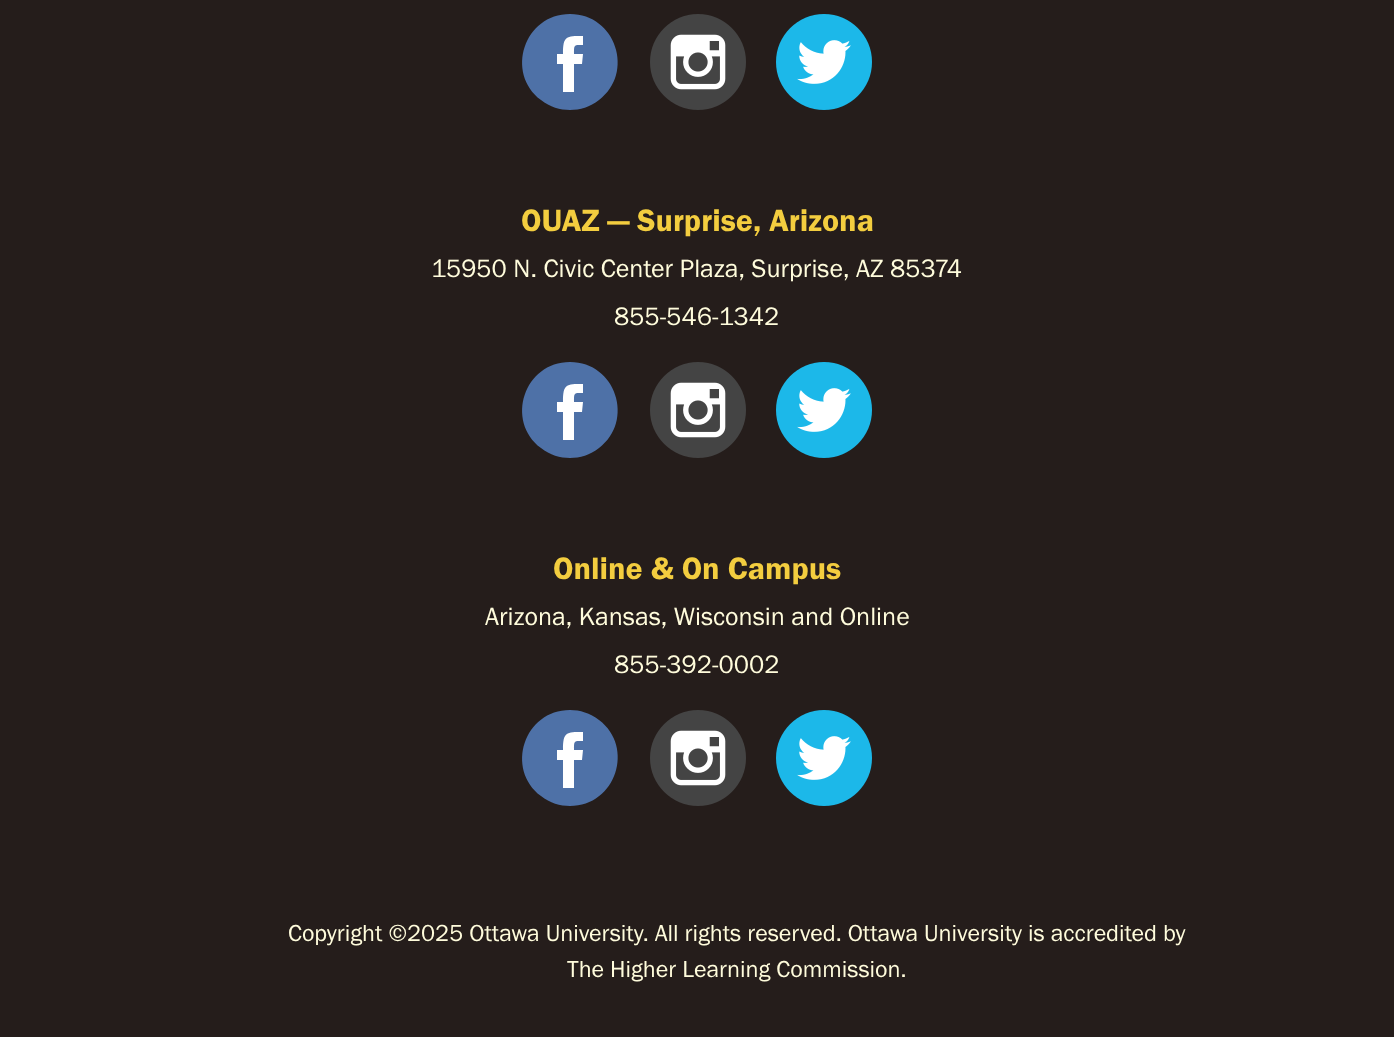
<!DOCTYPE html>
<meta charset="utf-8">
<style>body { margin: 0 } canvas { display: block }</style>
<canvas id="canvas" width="1394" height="1037"></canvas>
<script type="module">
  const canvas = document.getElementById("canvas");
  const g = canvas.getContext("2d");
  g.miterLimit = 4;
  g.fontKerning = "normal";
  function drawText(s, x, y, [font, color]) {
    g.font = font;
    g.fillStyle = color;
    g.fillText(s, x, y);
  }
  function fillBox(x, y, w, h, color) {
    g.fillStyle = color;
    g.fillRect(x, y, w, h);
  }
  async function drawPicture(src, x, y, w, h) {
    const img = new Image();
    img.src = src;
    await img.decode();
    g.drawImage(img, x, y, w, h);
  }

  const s1 = ["32px Franklin Gothic", "#F3CD3F"];
  const s2 = ["26px 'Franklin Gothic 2'", "#FFFCDC"];
  const s3 = ["24px 'Franklin Gothic 2'", "#FFFCDC"];

  fillBox(0, 0, 1394, 1037, "#251D1B");
  g.fillStyle = "#FFFFFF";
  g.beginPath();
  g.arc(570, 62, 44, 0, Math.PI * 2);
  g.fill();
  g.fillStyle = "#4E71A7";
  g.beginPath();
  g.moveTo(570, 14);
  g.bezierCurveTo(524, 14, 505, 73, 541, 100);
  g.bezierCurveTo(550, 107, 560, 110, 570, 110);
  g.bezierCurveTo(580, 110, 590, 107, 599, 100);
  g.bezierCurveTo(635, 73, 616, 14, 570, 14);
  g.closePath();
  g.moveTo(582, 64);
  g.lineTo(574, 64);
  g.lineTo(574, 92);
  g.lineTo(563, 92);
  g.lineTo(563, 64);
  g.lineTo(557, 64);
  g.lineTo(557, 54);
  g.lineTo(563, 54);
  g.bezierCurveTo(563, 36, 566, 36, 583, 36);
  g.lineTo(583, 45);
  g.bezierCurveTo(574, 45, 574, 44, 574, 54);
  g.lineTo(583, 54);
  g.closePath();
  g.fill();
  g.fillStyle = "#FFFFFF";
  g.beginPath();
  g.arc(698, 62, 44, 0, Math.PI * 2);
  g.fill();
  await drawPicture("pic1.png", 650, 14, 96, 96);
  g.beginPath();
  g.arc(824, 62, 44, 0, Math.PI * 2);
  g.fill();
  await drawPicture("pic2.png", 776, 14, 96, 96);
  drawText("OUAZ — Surprise, Arizona", 521, 231, s1);
  drawText("15950 N. Civic Center Plaza, Surprise, AZ 85374", 431, 277, s2);
  drawText("855-546-1342", 614, 325, s2);
  g.fillStyle = "#FFFFFF";
  g.beginPath();
  g.arc(570, 410, 44, 0, Math.PI * 2);
  g.fill();
  g.fillStyle = "#4E71A7";
  g.beginPath();
  g.moveTo(570, 362);
  g.bezierCurveTo(524, 362, 505, 421, 541, 448);
  g.bezierCurveTo(550, 455, 560, 458, 570, 458);
  g.bezierCurveTo(580, 458, 590, 455, 599, 448);
  g.bezierCurveTo(635, 421, 616, 362, 570, 362);
  g.closePath();
  g.moveTo(582, 412);
  g.lineTo(574, 412);
  g.lineTo(574, 440);
  g.lineTo(563, 440);
  g.lineTo(563, 412);
  g.lineTo(557, 412);
  g.lineTo(557, 402);
  g.lineTo(563, 402);
  g.bezierCurveTo(563, 384, 566, 384, 583, 384);
  g.lineTo(583, 393);
  g.bezierCurveTo(574, 393, 574, 392, 574, 402);
  g.lineTo(583, 402);
  g.closePath();
  g.fill();
  g.fillStyle = "#FFFFFF";
  g.beginPath();
  g.arc(698, 410, 44, 0, Math.PI * 2);
  g.fill();
  await drawPicture("pic1.png", 650, 362, 96, 96);
  g.beginPath();
  g.arc(824, 410, 44, 0, Math.PI * 2);
  g.fill();
  await drawPicture("pic2.png", 776, 362, 96, 96);
  drawText("Online & On Campus", 553, 579, s1);
  drawText("Arizona, Kansas, Wisconsin and Online", 485, 625, s2);
  drawText("855-392-0002", 614, 673, s2);
  g.fillStyle = "#FFFFFF";
  g.beginPath();
  g.arc(570, 758, 44, 0, Math.PI * 2);
  g.fill();
  g.fillStyle = "#4E71A7";
  g.beginPath();
  g.moveTo(570, 710);
  g.bezierCurveTo(524, 710, 505, 769, 541, 796);
  g.bezierCurveTo(550, 803, 560, 806, 570, 806);
  g.bezierCurveTo(616, 806, 635, 747, 599, 720);
  g.bezierCurveTo(590, 713, 580, 710, 570, 710);
  g.closePath();
  g.moveTo(582, 760);
  g.lineTo(574, 760);
  g.lineTo(574, 788);
  g.lineTo(563, 788);
  g.lineTo(563, 760);
  g.lineTo(557, 760);
  g.lineTo(557, 750);
  g.lineTo(563, 750);
  g.bezierCurveTo(563, 732, 566, 732, 583, 732);
  g.lineTo(583, 741);
  g.bezierCurveTo(574, 741, 574, 740, 574, 750);
  g.lineTo(583, 750);
  g.closePath();
  g.fill();
  g.fillStyle = "#FFFFFF";
  g.beginPath();
  g.arc(698, 758, 44, 0, Math.PI * 2);
  g.fill();
  await drawPicture("pic1.png", 650, 710, 96, 96);
  g.beginPath();
  g.arc(824, 758, 44, 0, Math.PI * 2);
  g.fill();
  await drawPicture("pic2.png", 776, 710, 96, 96);
  drawText("Copyright ©2025 Ottawa University. All rights reserved. Ottawa University is accredited by", 288, 941, s3);
  drawText("The Higher Learning Commission.", 567, 977, s3);
</script>
